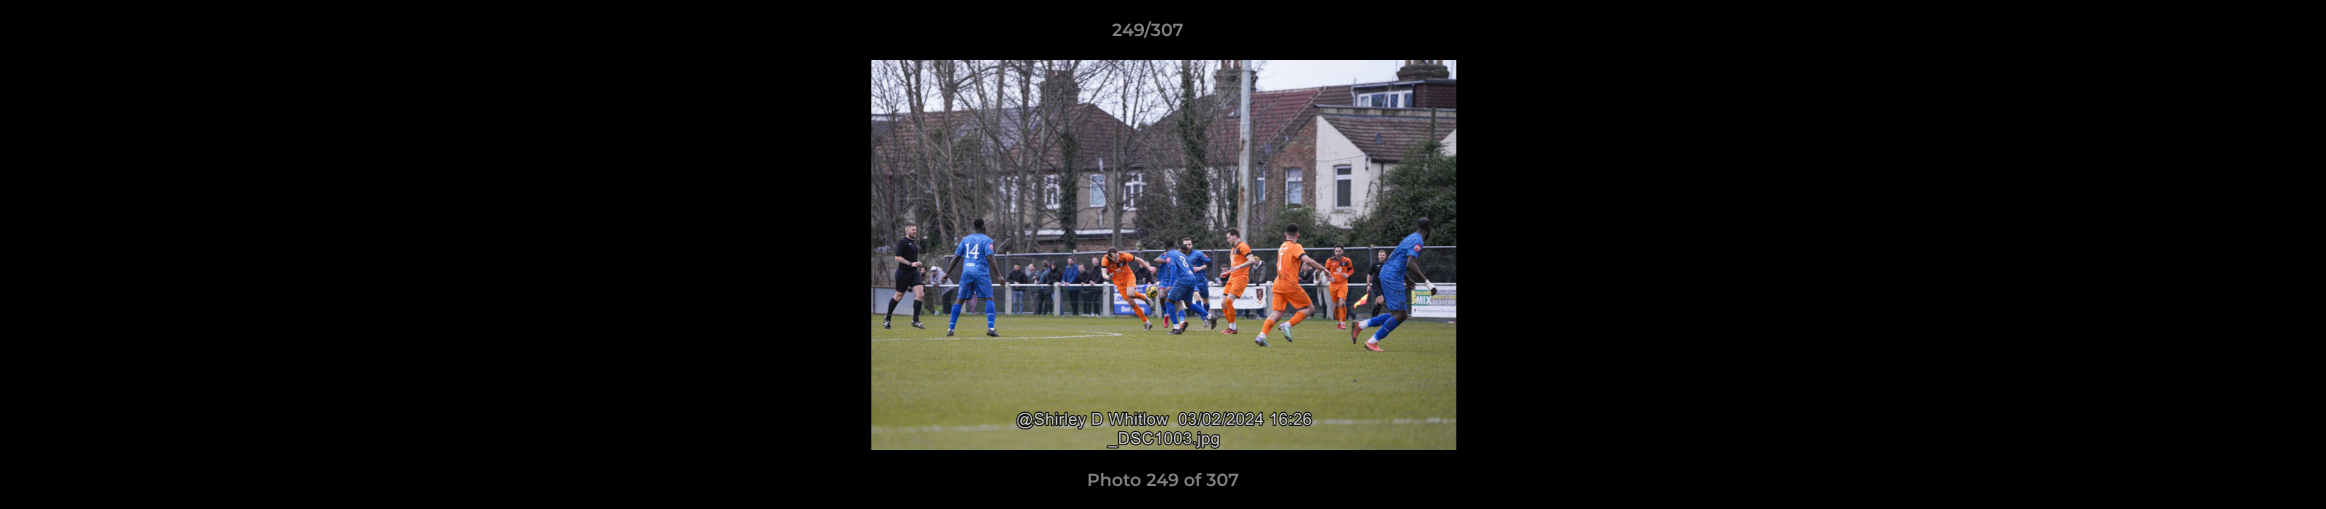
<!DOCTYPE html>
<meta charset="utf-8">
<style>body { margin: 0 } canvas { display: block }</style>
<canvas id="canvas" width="2326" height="509"></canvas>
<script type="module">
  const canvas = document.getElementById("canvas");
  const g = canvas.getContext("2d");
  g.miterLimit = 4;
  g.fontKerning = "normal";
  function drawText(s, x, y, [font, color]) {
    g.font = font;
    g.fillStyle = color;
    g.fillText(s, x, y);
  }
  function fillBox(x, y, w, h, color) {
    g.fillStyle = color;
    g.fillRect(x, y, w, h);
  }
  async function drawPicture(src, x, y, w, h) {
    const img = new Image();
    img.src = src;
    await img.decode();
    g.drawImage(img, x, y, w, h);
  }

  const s1 = ["600 17.5px Montserrat", "#808080"];

  fillBox(0, 0, 2326, 509, "#000000");
  drawText("249/307", 1112, 36, s1);
  await drawPicture("pic1.png", 871, 60, 586, 390);
  drawText("Photo 249 of 307", 1087, 486, s1);
</script>
